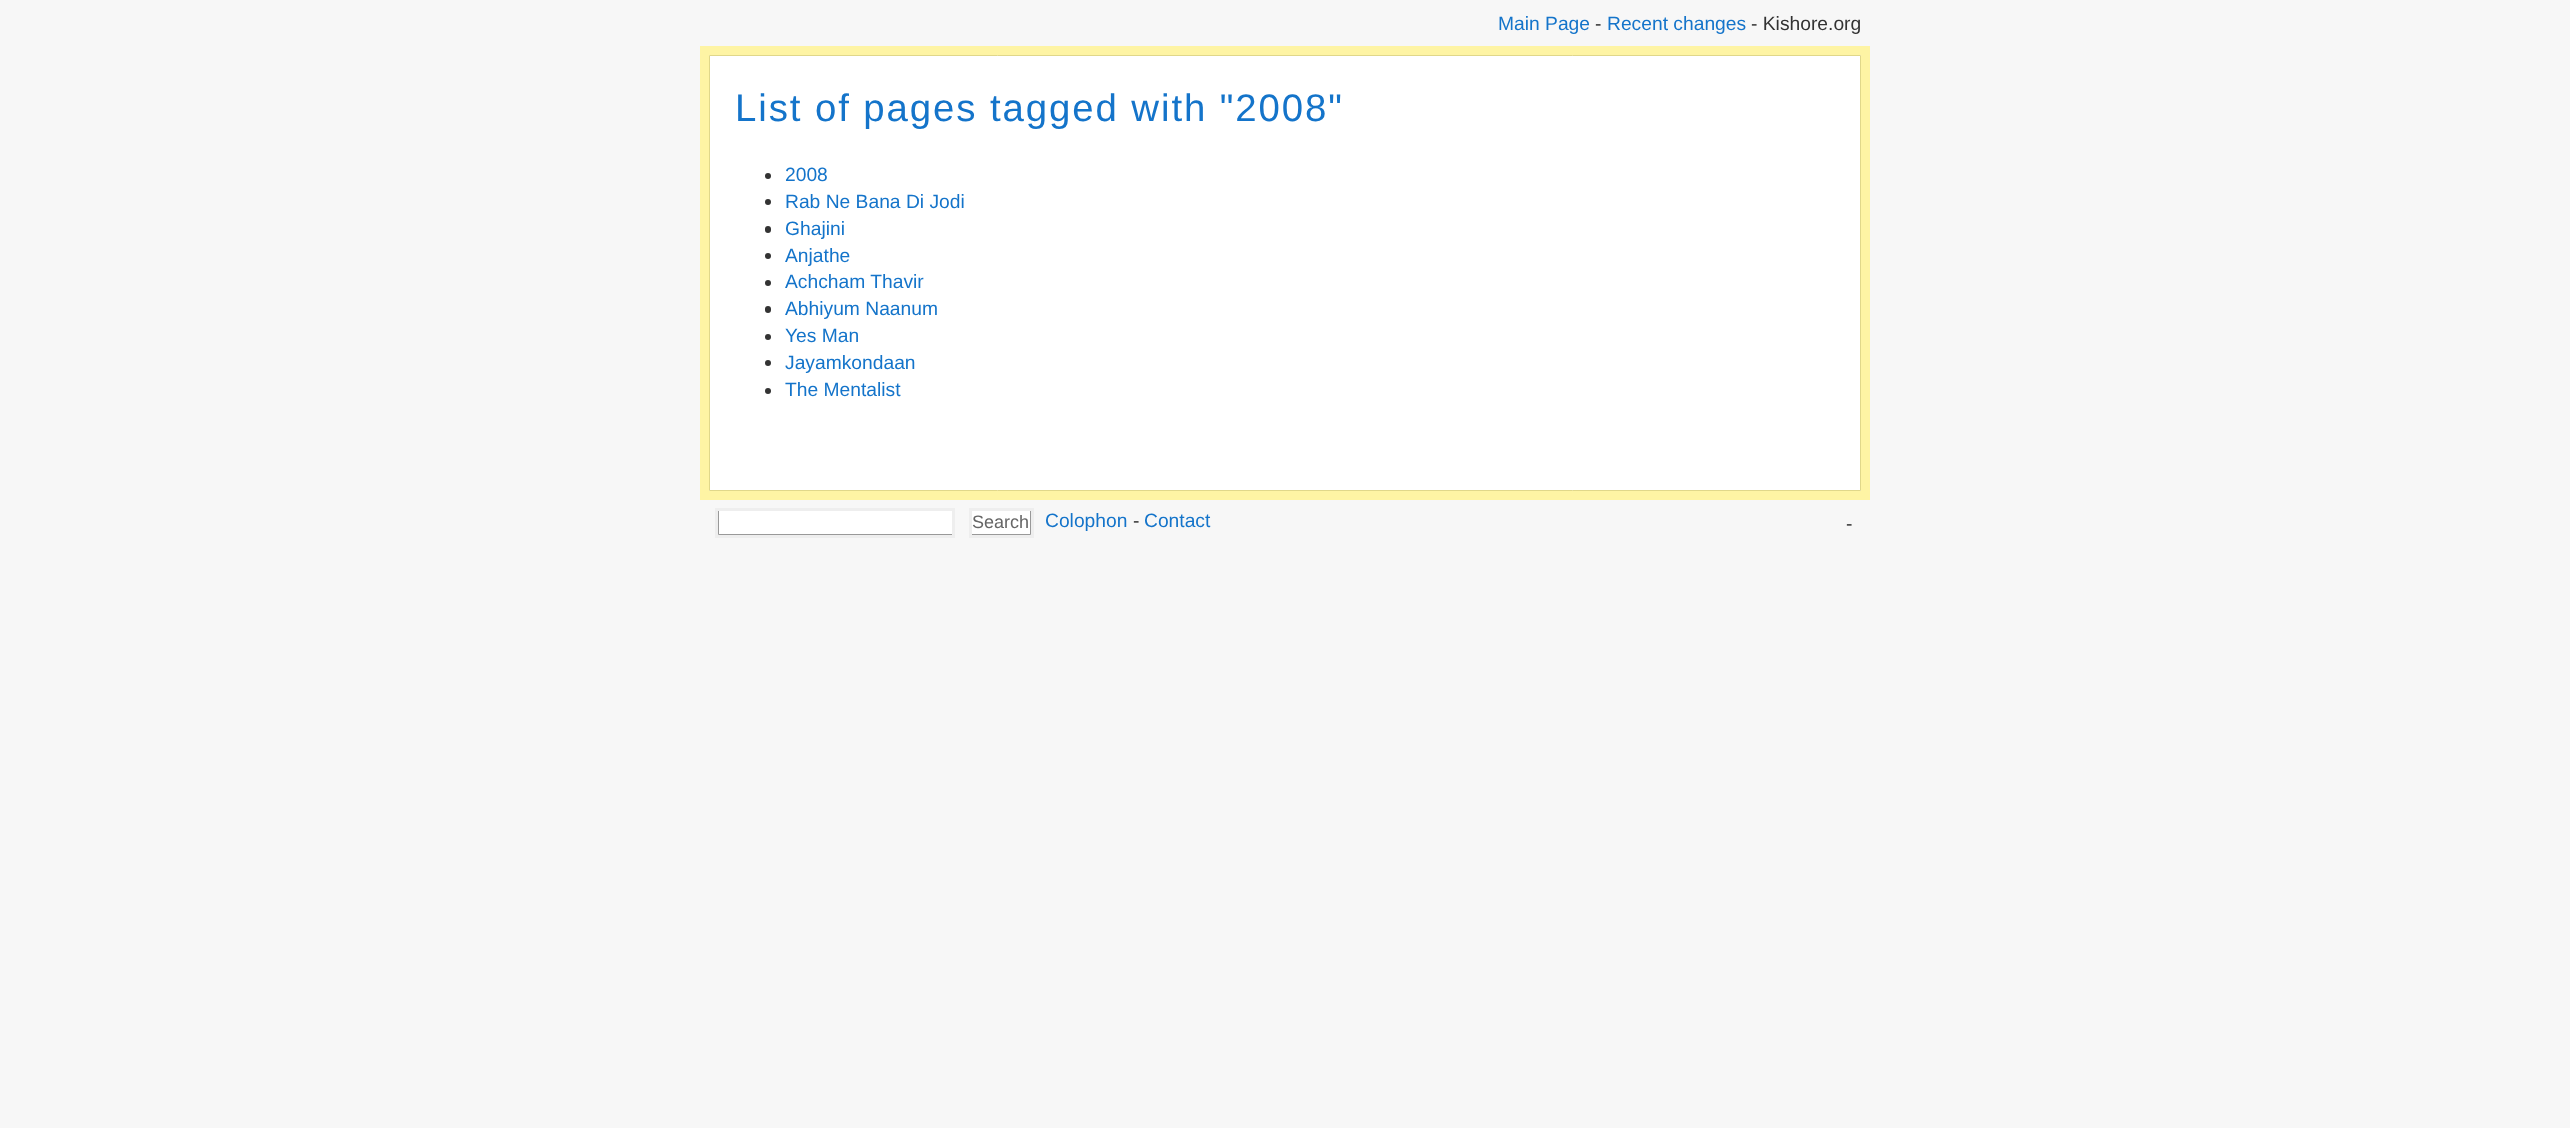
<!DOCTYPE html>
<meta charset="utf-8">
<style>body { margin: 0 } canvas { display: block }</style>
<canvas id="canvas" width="2570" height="1128"></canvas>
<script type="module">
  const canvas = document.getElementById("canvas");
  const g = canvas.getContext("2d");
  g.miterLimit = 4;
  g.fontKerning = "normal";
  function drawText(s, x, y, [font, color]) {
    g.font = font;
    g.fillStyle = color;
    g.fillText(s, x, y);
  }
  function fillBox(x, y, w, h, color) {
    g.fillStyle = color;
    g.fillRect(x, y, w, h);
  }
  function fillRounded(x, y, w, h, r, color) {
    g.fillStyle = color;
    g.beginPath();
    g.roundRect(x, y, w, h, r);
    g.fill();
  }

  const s1 = ["19.25px Liberation Sans", "#1474CA"];
  const s2 = ["19.25px Liberation Sans", "#333333"];
  const s3 = ["38.4px Liberation Sans", "#1474CA"];
  const s4 = ["18px Liberation Sans", "#666666"];

  fillBox(0, 0, 2570, 1128, "#F7F7F7");
  drawText("Main Page", 1498, 30, s1);
  drawText("-", 1595, 30, s2);
  drawText("Recent changes", 1607, 30, s1);
  drawText("- Kishore.org", 1751, 30, s2);
  g.fillStyle = "#FFFFFF";
  g.beginPath();
  g.rect(709.5, 55.5, 1151, 435);
  g.fill();
  g.strokeStyle = "#E0D78A";
  g.stroke();
  g.fillStyle = "#333333";
  g.beginPath();
  g.arc(768, 176, 3, 0, Math.PI * 2);
  g.fill();
  g.beginPath();
  g.arc(768, 202, 3, 0, Math.PI * 2);
  g.fill();
  fillRounded(765, 226, 6, 7, 3, "#333333");
  g.beginPath();
  g.arc(768, 256, 3, 0, Math.PI * 2);
  g.fill();
  g.beginPath();
  g.arc(768, 283, 3, 0, Math.PI * 2);
  g.fill();
  fillRounded(765, 306, 6, 7, 3, "#333333");
  g.beginPath();
  g.arc(768, 337, 3, 0, Math.PI * 2);
  g.fill();
  g.beginPath();
  g.arc(768, 363, 3, 0, Math.PI * 2);
  g.fill();
  g.beginPath();
  g.arc(768, 391, 3, 0, Math.PI * 2);
  g.fill();
  g.strokeStyle = "#FEF4A4";
  g.lineWidth = 9;
  g.strokeRect(704.5, 50.5, 1161, 445);
  g.letterSpacing = "1.9px";
  drawText("List of pages tagged with \"2008\"", 735, 121, s3);
  g.letterSpacing = "0px";
  drawText("2008", 785, 181, s1);
  drawText("Rab Ne Bana Di Jodi", 785, 208, s1);
  drawText("Ghajini", 785, 235, s1);
  drawText("Anjathe", 785, 262, s1);
  drawText("Achcham Thavir", 785, 288, s1);
  drawText("Abhiyum Naanum", 785, 315, s1);
  drawText("Yes Man", 785, 342, s1);
  drawText("Jayamkondaan", 785, 369, s1);
  drawText("The Mentalist", 785, 396, s1);
  g.fillStyle = "#FFFFFF";
  g.beginPath();
  g.rect(718.5, 510.5, 234, 24);
  g.fill();
  g.strokeStyle = "#999999";
  g.lineWidth = 1;
  g.stroke();
  g.strokeStyle = "#EEEEEE";
  g.lineWidth = 3;
  g.strokeRect(716.5, 509.5, 237, 27);
  g.beginPath();
  g.rect(971.5, 510.5, 59, 24);
  g.fill();
  g.strokeStyle = "#999999";
  g.lineWidth = 1;
  g.stroke();
  g.strokeStyle = "#EEEEEE";
  g.lineWidth = 3;
  g.strokeRect(970.5, 509.5, 62, 27);
  drawText("Search", 972, 528, s4);
  drawText("Colophon", 1045, 527, s1);
  drawText("-", 1133, 527, s2);
  drawText("Contact", 1144, 527, s1);
  drawText("-", 1846, 530, s2);
</script>
